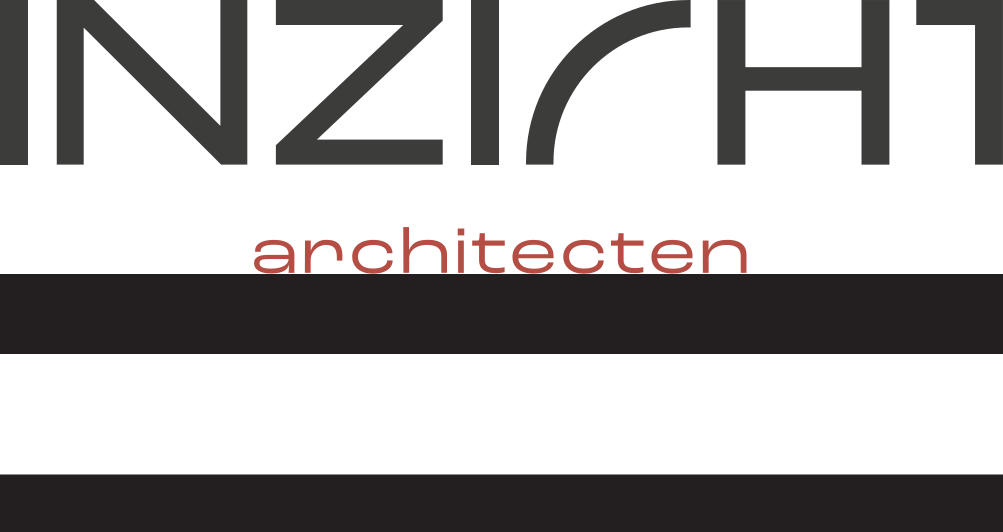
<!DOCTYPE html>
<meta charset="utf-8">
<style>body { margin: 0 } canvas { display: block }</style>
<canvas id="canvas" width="1003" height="532"></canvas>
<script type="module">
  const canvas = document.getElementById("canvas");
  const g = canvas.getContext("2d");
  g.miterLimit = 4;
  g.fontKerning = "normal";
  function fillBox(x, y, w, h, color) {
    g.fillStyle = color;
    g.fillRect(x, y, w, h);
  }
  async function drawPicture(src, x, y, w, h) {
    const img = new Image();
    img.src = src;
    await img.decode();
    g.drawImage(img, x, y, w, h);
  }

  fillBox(0, 0, 1003, 532, "#FFFFFF");
  await drawPicture("pic1.png", 0, 0, 1003, 274);
  fillBox(0, 274, 1003, 80, "#231F20");
  g.beginPath();
  g.moveTo(0, 514.5);
  g.lineTo(1003, 514.5);
  g.strokeStyle = "#231F20";
  g.lineWidth = 80.2;
  g.stroke();
</script>
